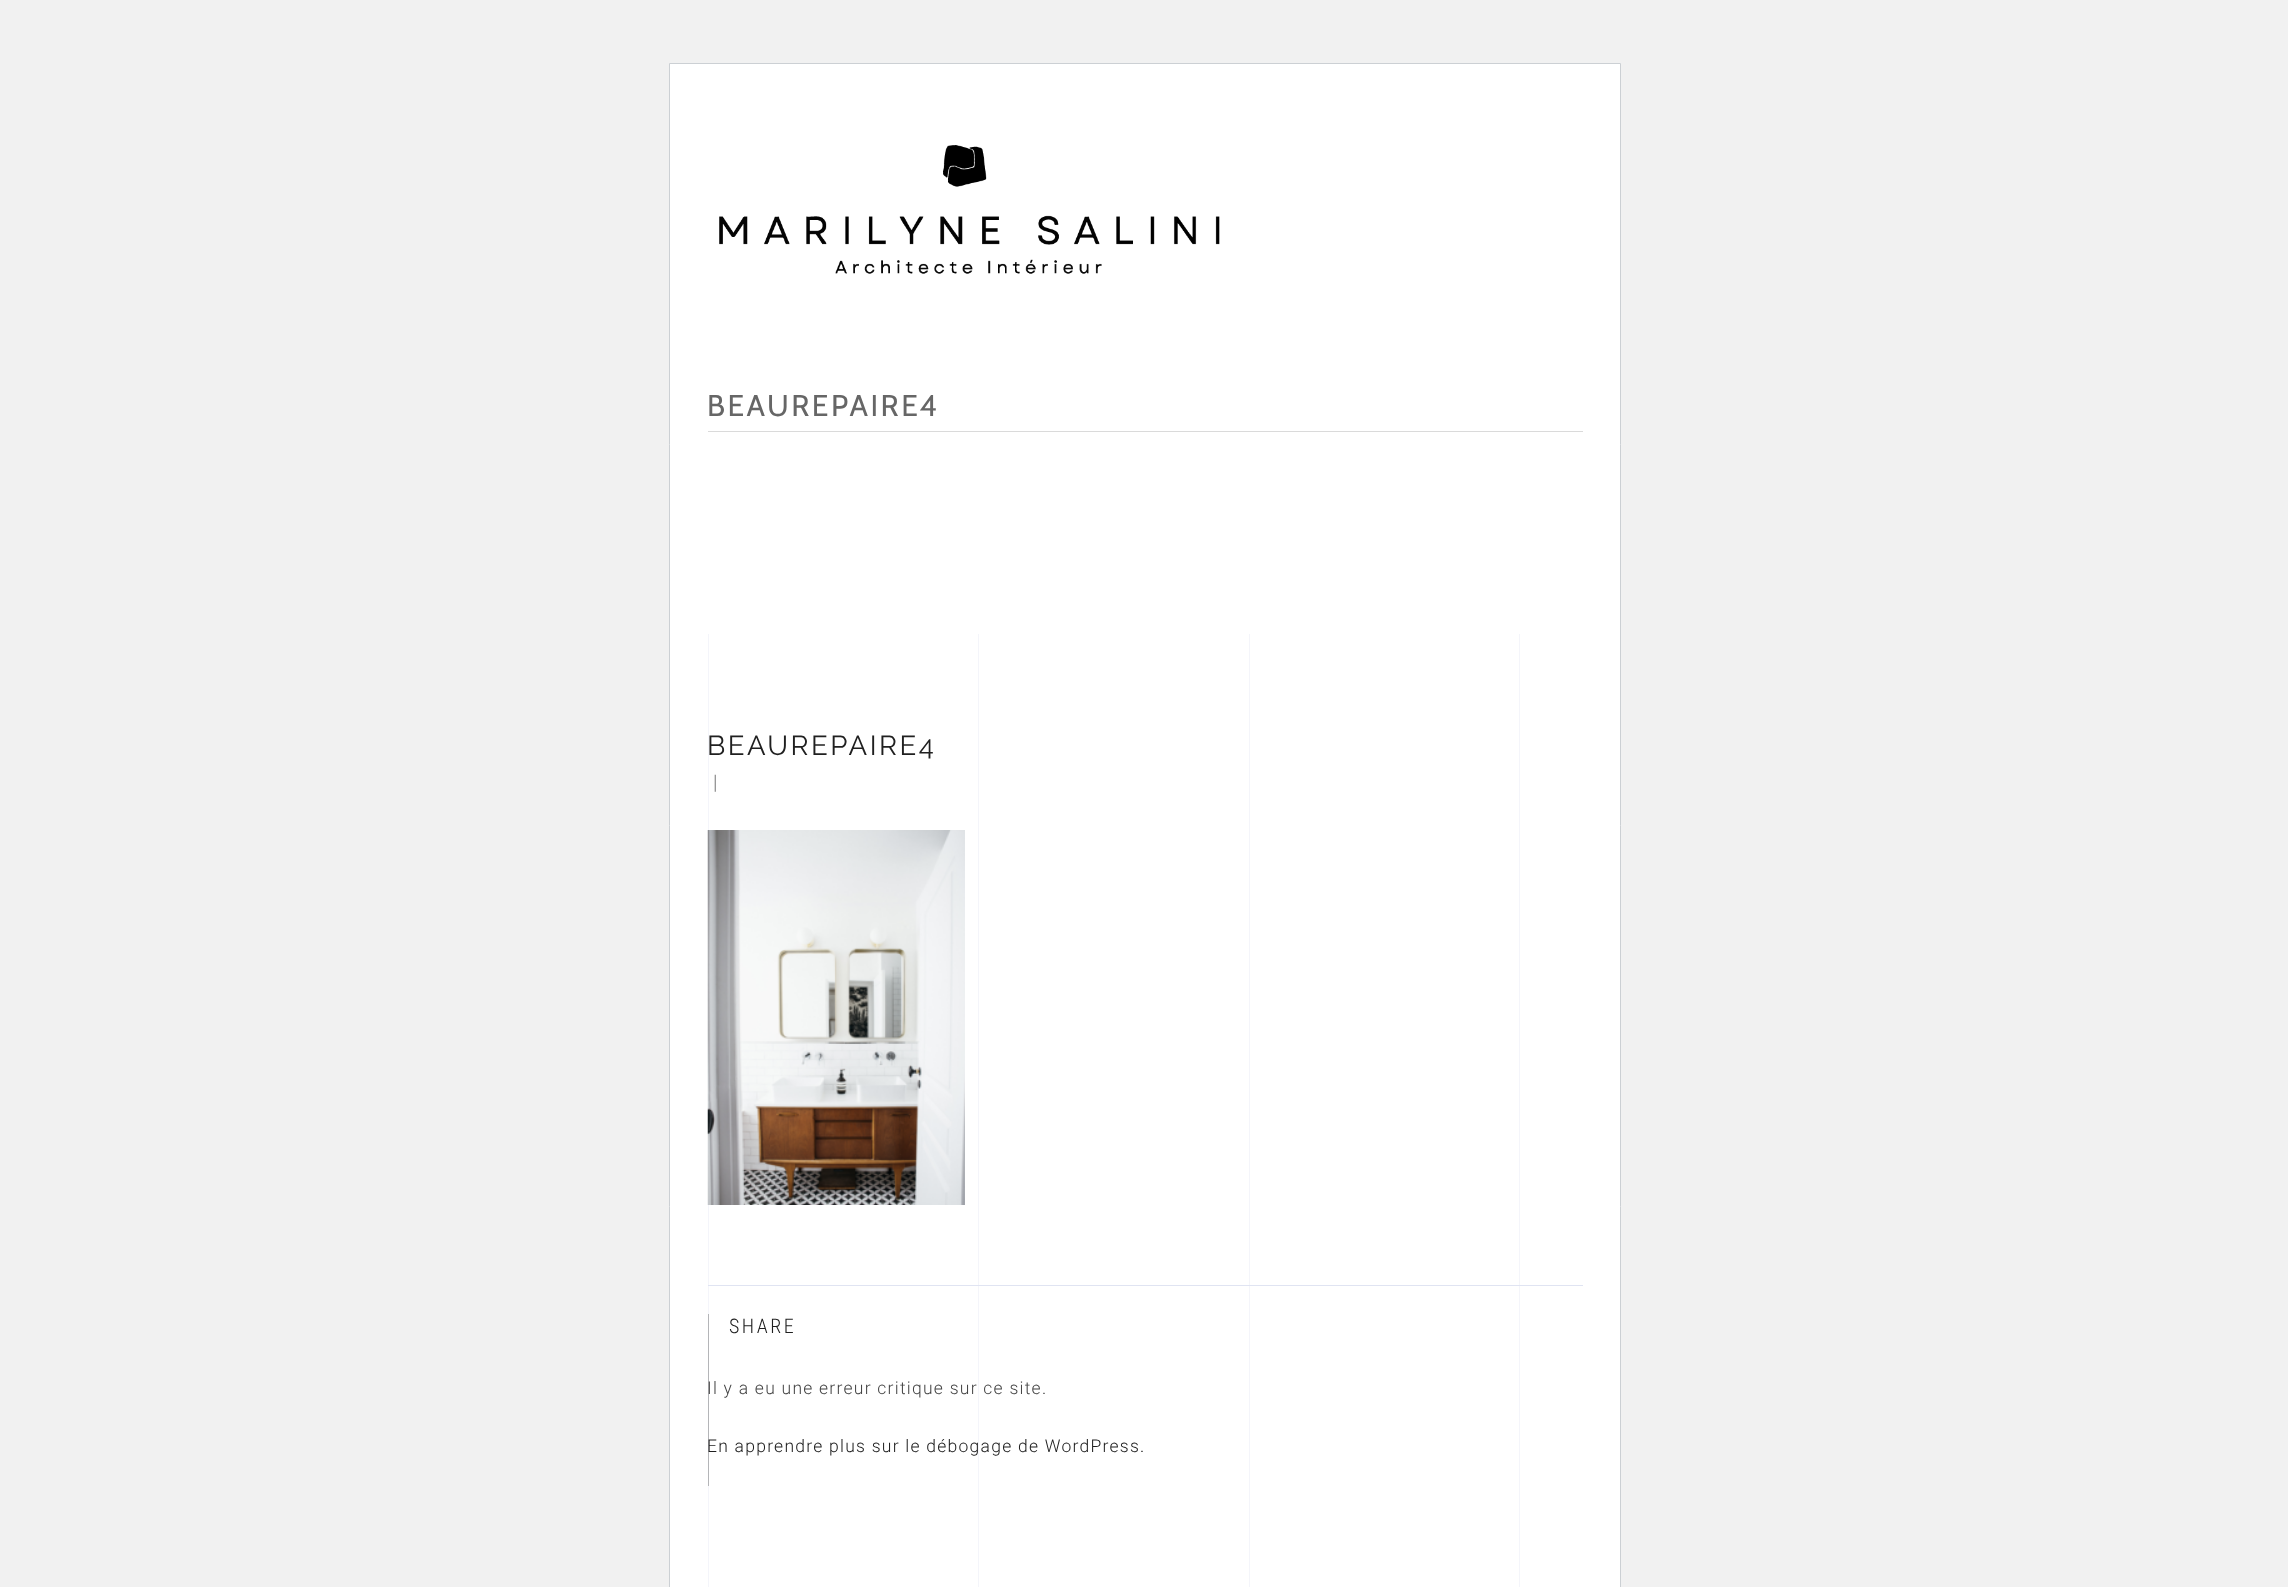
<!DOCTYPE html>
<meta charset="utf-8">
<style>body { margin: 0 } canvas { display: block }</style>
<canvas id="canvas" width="2288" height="1587"></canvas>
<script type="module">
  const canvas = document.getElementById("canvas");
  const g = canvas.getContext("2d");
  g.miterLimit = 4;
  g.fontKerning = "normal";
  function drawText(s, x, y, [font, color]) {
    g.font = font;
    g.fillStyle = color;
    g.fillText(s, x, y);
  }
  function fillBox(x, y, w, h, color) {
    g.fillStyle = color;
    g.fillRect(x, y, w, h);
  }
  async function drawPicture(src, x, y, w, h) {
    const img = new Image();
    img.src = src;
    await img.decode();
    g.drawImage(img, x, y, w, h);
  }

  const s1 = ["30px Cabin", "#666666"];
  const s2 = ["27.5px Raleway", "#202020"];
  const s3 = ["300 20px Roboto Condensed", "#797979"];
  const s4 = ["300 17.5px Roboto", "#444444"];
  const s5 = ["300 17.5px Roboto", "#202020"];
  const s6 = ["300 20px Roboto Condensed", "#202020"];

  fillBox(0, 0, 2288, 1587, "#F1F1F1");
  g.fillStyle = "#FFFFFF";
  g.beginPath();
  g.rect(669.5, 63.5, 951, 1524);
  g.fill();
  g.strokeStyle = "#CCD0D4";
  g.stroke();
  await drawPicture("pic1.png", 719, 145, 501, 129);
  fillBox(708, 431, 875, 1, "#DADADA");
  g.letterSpacing = "2.5px";
  drawText("BEAUREPAIRE4", 707, 416, s1);
  fillBox(708, 634, 1, 953, "#F4F5FA");
  fillBox(978, 634, 1, 953, "#F4F5FA");
  fillBox(1249, 634, 1, 953, "#F4F5FA");
  fillBox(1519, 634, 1, 953, "#F4F5FA");
  drawText("BEAUREPAIRE4", 707, 755, s2);
  g.letterSpacing = "0px";
  drawText("|", 713, 789, s3);
  await drawPicture("pic2.png", 707, 830, 258, 375);
  fillBox(708, 1285, 875, 1, "#E0E4F2");
  g.letterSpacing = "1.25px";
  drawText("Il y a eu une erreur critique sur ce site.", 707, 1394, s4);
  drawText("En apprendre plus sur le débogage de WordPress.", 707, 1452, s5);
  fillBox(708, 1314, 1, 172, "rgba(32, 32, 32, 0.3)");
  g.letterSpacing = "2.5px";
  drawText("SHARE", 729, 1333, s6);
</script>
